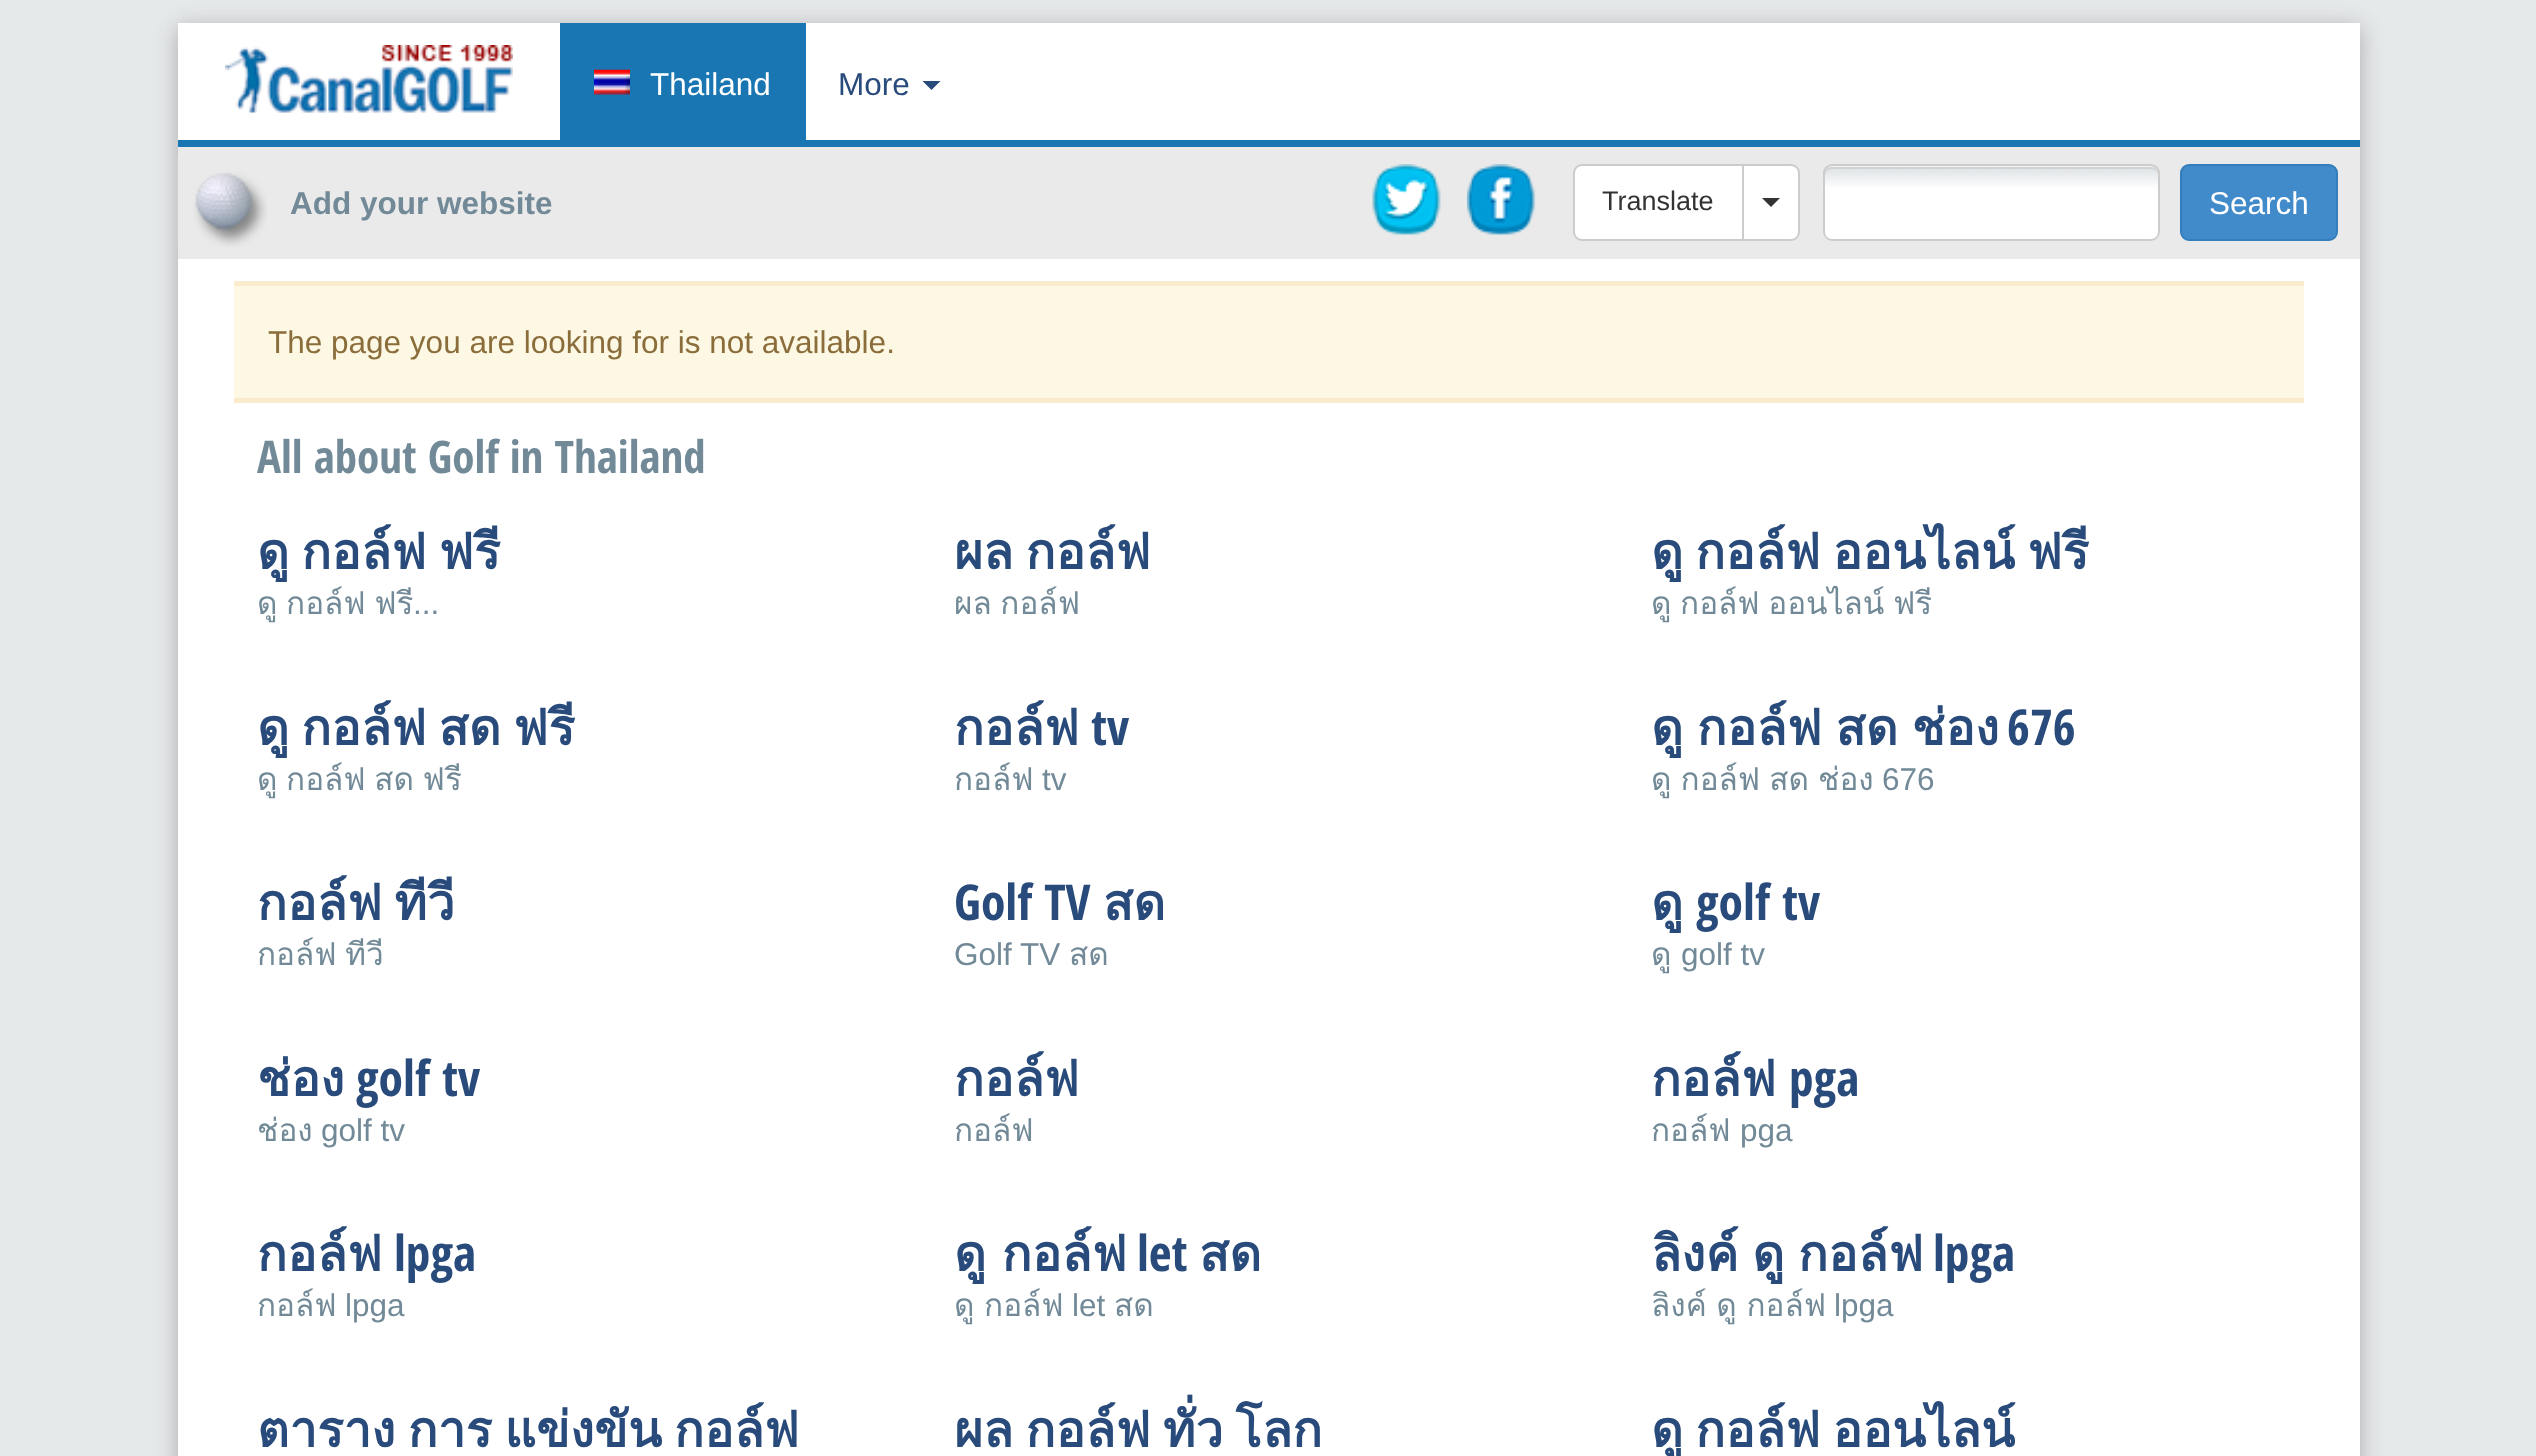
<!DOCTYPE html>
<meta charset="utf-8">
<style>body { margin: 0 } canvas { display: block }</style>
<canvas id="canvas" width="2536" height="1456"></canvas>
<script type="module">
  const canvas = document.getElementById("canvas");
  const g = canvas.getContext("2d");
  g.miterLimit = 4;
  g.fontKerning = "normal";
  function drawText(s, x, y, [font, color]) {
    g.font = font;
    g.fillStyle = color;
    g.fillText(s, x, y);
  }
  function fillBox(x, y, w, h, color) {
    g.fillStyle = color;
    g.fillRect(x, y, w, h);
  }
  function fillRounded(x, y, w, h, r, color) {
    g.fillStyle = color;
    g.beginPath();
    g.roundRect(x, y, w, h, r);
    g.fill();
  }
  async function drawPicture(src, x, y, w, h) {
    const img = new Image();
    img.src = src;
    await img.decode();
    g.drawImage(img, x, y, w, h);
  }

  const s1 = ["31.5px Liberation Sans", "#FFFFFF"];
  const s2 = ["31.5px Liberation Sans", "#294B7B"];
  const s3 = ["bold 31.5px Liberation Sans", "#728A98"];
  const s4 = ["27px Liberation Sans", "#333333"];
  const s5 = ["31.5px Liberation Sans", "#8A6D3B"];
  const s6 = ["bold 45px Open Sans Condensed", "#728A98"];
  const s7 = ["bold 49.5px Loma", "#294B7B"];
  const s8 = ["31.5px Loma", "#728A98"];
  const s9 = ["31.5px Liberation Sans", "#728A98"];
  const s10 = ["bold 49.5px Open Sans Condensed", "#294B7B"];

  fillBox(0, 0, 2536, 1456, "#E6E9EA");
  g.fillStyle = "#AAAAAA";
  g.filter = "blur(11px)";
  g.beginPath();
  g.rect(178, 27, 2182, 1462);
  g.fill();
  g.filter = "none";
  fillBox(178, 23, 2182, 1433, "#FFFFFF");
  fillBox(178, 140, 2182, 7, "#1976B2");
  await drawPicture("pic1.png", 225, 45, 288, 68);
  fillBox(560, 23, 246, 117, "#1976B2");
  await drawPicture("pic2.png", 594, 69, 36, 26);
  drawText("Thailand", 650, 95, s1);
  drawText("More", 838, 95, s2);
  g.beginPath();
  g.moveTo(922.5, 81);
  g.lineTo(940.5, 81);
  g.lineTo(931.5, 90);
  g.closePath();
  g.fill();
  fillBox(178, 147, 2182, 112, "#EAEAEA");
  await drawPicture("pic3.png", 177, 158, 90, 89);
  drawText("Add your website", 290, 214, s3);
  await drawPicture("pic4.png", 1372, 164, 69, 71);
  await drawPicture("pic5.png", 1467, 164, 69, 71);
  g.fillStyle = "#FFFFFF";
  g.beginPath();
  g.roundRect(1574, 165, 169, 75, [8, 0, 0, 8]);
  g.fill();
  g.strokeStyle = "#CCCCCC";
  g.lineWidth = 2;
  g.stroke();
  drawText("Translate", 1602, 210, s4);
  g.fillStyle = "#FFFFFF";
  g.beginPath();
  g.roundRect(1743, 165, 56, 75, [0, 8, 8, 0]);
  g.fill();
  g.stroke();
  g.fillStyle = "#333333";
  g.beginPath();
  g.moveTo(1762, 198);
  g.lineTo(1780, 198);
  g.lineTo(1771, 207);
  g.closePath();
  g.fill();
  fillRounded(1823, 164, 337, 77, 9, "#FFFFFF");
  await drawPicture("pic6.png", 1822, 166, 338, 23);
  g.fillStyle = "rgba(0, 0, 0, 0.07)";
  g.beginPath();
  g.moveTo(1832, 169);
  g.lineTo(2151, 169);
  g.bezierCurveTo(2155, 169, 2158, 172, 2158, 176);
  g.lineTo(2158, 174);
  g.bezierCurveTo(2158, 170, 2155, 167, 2151, 167);
  g.lineTo(1832, 167);
  g.bezierCurveTo(1828, 167, 1825, 170, 1825, 174);
  g.lineTo(1825, 176);
  g.bezierCurveTo(1825, 172, 1828, 169, 1832, 169);
  g.closePath();
  g.fill();
  g.beginPath();
  g.roundRect(1824, 165, 335, 75, 8);
  g.stroke();
  g.fillStyle = "#428BCA";
  g.beginPath();
  g.roundRect(2181, 165, 156, 75, 8);
  g.fill();
  g.strokeStyle = "#357EBD";
  g.stroke();
  drawText("Search", 2209, 214, s1);
  fillBox(234, 286, 2070, 112, "#FCF8E3");
  fillBox(234, 281, 2070, 5, "#FAEBCC");
  fillBox(234, 398, 2070, 5, "#FAEBCC");
  drawText("The page you are looking for is not available.", 268, 353, s5);
  drawText("All about Golf in Thailand", 257, 473, s6);
  g.wordSpacing = "-4.5px";
  drawText("ดู กอล์ฟ ฟรี", 257, 569, s7);
  g.wordSpacing = "-2px";
  drawText("ดู กอล์ฟ ฟรี", 257, 614, s8);
  g.wordSpacing = "0px";
  drawText("...", 413, 614, s9);
  g.wordSpacing = "-4.5px";
  drawText("ผล กอล์ฟ", 954, 569, s7);
  g.wordSpacing = "-2px";
  drawText("ผล กอล์ฟ", 954, 614, s8);
  g.wordSpacing = "-4.5px";
  drawText("ดู กอล์ฟ ออนไลน์ ฟรี", 1651, 569, s7);
  g.wordSpacing = "-2px";
  drawText("ดู กอล์ฟ ออนไลน์ ฟรี", 1651, 614, s8);
  g.wordSpacing = "-4.5px";
  drawText("ดู กอล์ฟ สด ฟรี", 257, 745, s7);
  g.wordSpacing = "-2px";
  drawText("ดู กอล์ฟ สด ฟรี", 257, 790, s8);
  g.wordSpacing = "0px";
  drawText("กอล์ฟ", 954, 745, s7);
  drawText("tv", 1091, 745, s10);
  drawText("กอล์ฟ", 954, 790, s8);
  drawText("tv", 1042, 790, s9);
  g.wordSpacing = "-3px";
  drawText("ดู กอล์ฟ สด ช่อง", 1651, 745, s7);
  g.wordSpacing = "0px";
  drawText("676", 2007, 745, s10);
  g.wordSpacing = "-1.5px";
  drawText("ดู กอล์ฟ สด ช่อง", 1651, 790, s8);
  g.wordSpacing = "0px";
  drawText("676", 1882, 790, s9);
  g.wordSpacing = "-4.5px";
  drawText("กอล์ฟ ทีวี", 257, 920, s7);
  g.wordSpacing = "-2px";
  drawText("กอล์ฟ ทีวี", 257, 965, s8);
  g.wordSpacing = "0px";
  drawText("Golf TV", 954, 920, s10);
  drawText("สด", 1103, 920, s7);
  drawText("Golf TV", 954, 965, s9);
  drawText("สด", 1069, 965, s8);
  drawText("ดู", 1651, 920, s7);
  drawText("golf tv", 1696, 920, s10);
  drawText("ดู", 1651, 965, s8);
  drawText("golf tv", 1681, 965, s9);
  drawText("ช่อง", 257, 1096, s7);
  drawText("golf tv", 356, 1096, s10);
  drawText("ช่อง", 257, 1141, s8);
  drawText("golf tv", 321, 1141, s9);
  drawText("กอล์ฟ", 954, 1096, s7);
  drawText("กอล์ฟ", 954, 1141, s8);
  drawText("กอล์ฟ", 1651, 1096, s7);
  drawText("pga", 1789, 1096, s10);
  drawText("กอล์ฟ", 1651, 1141, s8);
  drawText("pga", 1740, 1141, s9);
  drawText("กอล์ฟ", 257, 1271, s7);
  drawText("lpga", 394, 1271, s10);
  drawText("กอล์ฟ", 257, 1316, s8);
  drawText("lpga", 345, 1316, s9);
  g.wordSpacing = "-1px";
  drawText("ดู กอล์ฟ", 954, 1271, s7);
  g.wordSpacing = "0px";
  drawText("let", 1137, 1271, s10);
  drawText("สด", 1199, 1271, s7);
  g.wordSpacing = "-1px";
  drawText("ดู กอล์ฟ", 954, 1316, s8);
  g.wordSpacing = "0px";
  drawText("let", 1072, 1316, s9);
  drawText("สด", 1114, 1316, s8);
  g.wordSpacing = "-3px";
  drawText("ลิงค์ ดู กอล์ฟ", 1651, 1271, s7);
  g.wordSpacing = "0px";
  drawText("lpga", 1933, 1271, s10);
  g.wordSpacing = "-1px";
  drawText("ลิงค์ ดู กอล์ฟ", 1651, 1316, s8);
  g.wordSpacing = "0px";
  drawText("lpga", 1834, 1316, s9);
  g.wordSpacing = "-4.5px";
  drawText("ตาราง การ แข่งขัน กอล์ฟ", 257, 1447, s7);
  drawText("ผล กอล์ฟ ทั่ว โลก", 954, 1447, s7);
  drawText("ดู กอล์ฟ ออนไลน์", 1651, 1447, s7);
</script>
